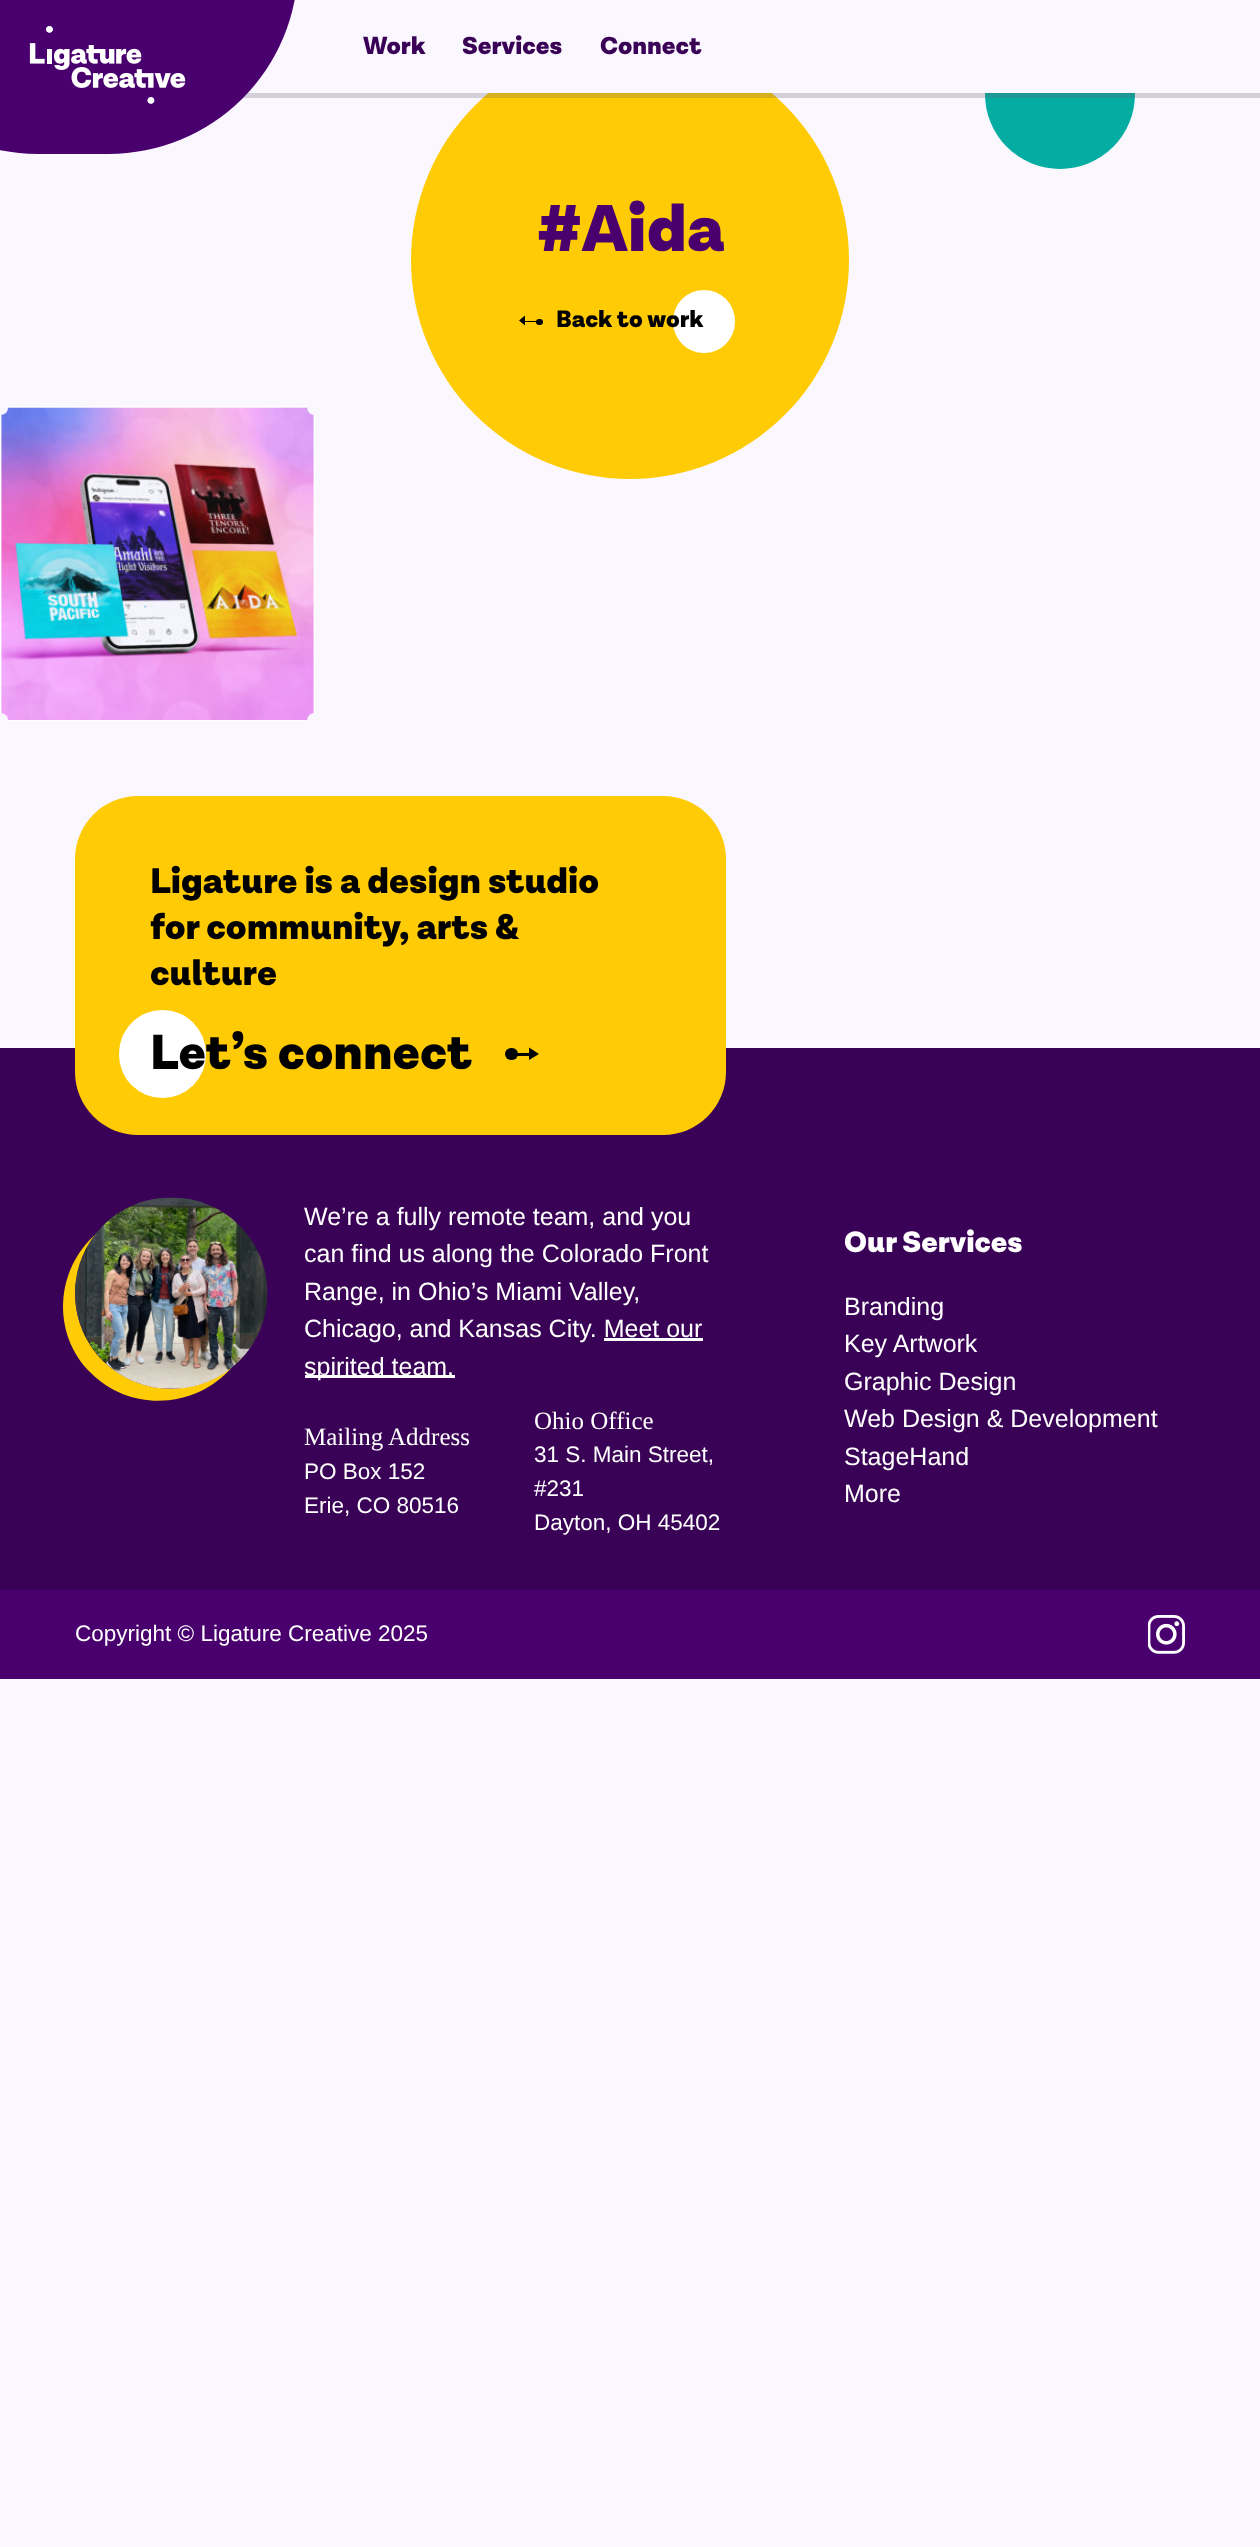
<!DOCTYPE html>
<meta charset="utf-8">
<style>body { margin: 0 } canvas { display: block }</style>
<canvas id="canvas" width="1260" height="2547"></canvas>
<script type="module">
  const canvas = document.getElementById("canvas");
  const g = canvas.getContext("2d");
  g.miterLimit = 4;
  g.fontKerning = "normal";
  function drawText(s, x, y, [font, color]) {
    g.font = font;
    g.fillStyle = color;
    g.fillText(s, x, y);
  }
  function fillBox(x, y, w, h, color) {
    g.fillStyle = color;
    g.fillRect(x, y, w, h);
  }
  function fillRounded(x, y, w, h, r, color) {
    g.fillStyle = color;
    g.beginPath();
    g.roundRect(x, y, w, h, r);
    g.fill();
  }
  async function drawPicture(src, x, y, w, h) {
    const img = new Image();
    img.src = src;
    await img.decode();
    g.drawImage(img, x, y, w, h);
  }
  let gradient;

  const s1 = ["900 25px 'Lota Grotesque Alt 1'", "#3A0256"];
  const s2 = ["900 67px 'Lota Grotesque Alt 1'", "#49006E"];
  const s3 = ["900 24px 'Lota Grotesque Alt 1'", "#000000"];
  const s4 = ["900 36.25px 'Lota Grotesque Alt 1'", "#000000"];
  const s5 = ["900 50px 'Lota Grotesque Alt 1'", "#000000"];
  const s6 = ["25px Liberation Sans", "#FFFFFF"];
  const s7 = ["25px Liberation Serif", "#FFFFFF"];
  const s8 = ["22.5px Liberation Sans", "#FFFFFF"];
  const s9 = ["900 30px 'Lota Grotesque Alt 1'", "#FFFFFF"];

  fillBox(0, 0, 1260, 2547, "#FBF7FF");
  g.fillStyle = "#04ACA2";
  g.beginPath();
  g.arc(1060, 94, 75, 0, Math.PI * 2);
  g.fill();
  g.fillStyle = "#FFCB04";
  g.beginPath();
  g.arc(630, 260, 219, 0, Math.PI * 2);
  g.fill();
  fillBox(221, 93, 1039, 5, "rgba(95, 91, 105, 0.25)");
  fillRounded(-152, -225, 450, 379, 225, "#49006E");
  await drawPicture("pic1.png", 29, 26, 157, 78);
  fillBox(488, 19, 647, 74, "#FBF7FF");
  drawText("Work", 363, 54, s1);
  drawText("Services", 462, 54, s1);
  drawText("Connect", 600, 54, s1);
  drawText("#Aida", 537, 251, s2);
  fillRounded(673, 290, 62, 63, 31, "#FFFFFF");
  fillBox(525, 321, 13, 1, "#000000");
  g.beginPath();
  g.moveTo(525, 315.5);
  g.lineTo(525, 325.5);
  g.lineTo(519, 320.5);
  g.closePath();
  g.fill();
  fillRounded(536, 319, 7, 6, 3, "#000000");
  drawText("Back to work", 556, 327, s3);
  g.strokeStyle = "#FFFFFF";
  g.strokeRect(0.5, 406.5, 314, 314);
  await drawPicture("pic2.png", 1, 407, 313, 313);
  gradient = g.createRadialGradient(1.2, 720, 0, 1.2, 720, 15);
  gradient.addColorStop(0.41, "#FBF7FF");
  gradient.addColorStop(0.49, "rgba(251, 247, 255, 0)");
  g.fillStyle = gradient;
  g.fillRect(0, 713, 9, 8);
  gradient = g.createRadialGradient(1.2, 408, 0, 1.2, 408, 15);
  gradient.addColorStop(0.41, "#FBF7FF");
  gradient.addColorStop(0.49, "rgba(251, 247, 255, 0)");
  g.fillStyle = gradient;
  g.fillRect(0, 406, 9, 9);
  gradient = g.createRadialGradient(314, 720, 0, 314, 720, 15);
  gradient.addColorStop(0.41, "#FBF7FF");
  gradient.addColorStop(0.49, "rgba(251, 247, 255, 0)");
  g.fillStyle = gradient;
  g.fillRect(307, 713, 14, 8);
  gradient = g.createRadialGradient(314, 408, 0, 314, 408, 15);
  gradient.addColorStop(0.41, "#FBF7FF");
  gradient.addColorStop(0.49, "rgba(251, 247, 255, 0)");
  g.fillStyle = gradient;
  g.fillRect(307, 406, 8, 9);
  fillBox(0, 1048, 1260, 542, "#3A0256");
  fillRounded(75, 796, 651, 339, 63, "#FFCB04");
  drawText("Ligature is a design studio", 150, 893, s4);
  drawText("for community, arts &", 150, 939, s4);
  drawText("culture", 150, 985, s4);
  fillRounded(119, 1010, 87, 88, 43.5, "#FFFFFF");
  drawText("Let’s connect", 150, 1069, s5);
  fillBox(516, 1053, 13, 3, "#000000");
  fillRounded(505, 1048, 13, 12, 6, "#000000");
  g.beginPath();
  g.moveTo(529, 1060);
  g.lineTo(529, 1047.5);
  g.lineTo(539, 1054);
  g.closePath();
  g.fill();
  g.fillStyle = "#FFCB04";
  g.beginPath();
  g.moveTo(97, 1233);
  g.bezierCurveTo(55, 1269, 51, 1334, 91, 1373);
  g.bezierCurveTo(131, 1413, 197, 1409, 233, 1366);
  g.bezierCurveTo(195, 1398, 139, 1396, 103, 1361);
  g.bezierCurveTo(68, 1326, 66, 1270, 97, 1233);
  g.closePath();
  g.fill();
  await drawPicture("pic3.png", 75, 1197, 193, 192);
  drawText("We’re a fully remote team, and you", 304, 1225, s6);
  drawText("can find us along the Colorado Front", 304, 1262, s6);
  drawText("Range, in Ohio’s Miami Valley,", 304, 1300, s6);
  drawText("Chicago, and Kansas City. Meet our", 304, 1337, s6);
  fillBox(305, 1375, 150, 3, "#FFFFFF");
  drawText("spirited team.", 304, 1375, s6);
  fillBox(604, 1338, 99, 3, "#FFFFFF");
  drawText("Mailing Address", 304, 1445, s7);
  drawText("PO Box 152", 304, 1479, s8);
  drawText("Erie, CO 80516", 304, 1513, s8);
  drawText("Ohio Office", 534, 1429, s7);
  drawText("31 S. Main Street,", 534, 1462, s8);
  drawText("#231", 534, 1496, s8);
  drawText("Dayton, OH 45402", 534, 1530, s8);
  drawText("Our Services", 844, 1252, s9);
  drawText("Branding", 844, 1315, s6);
  drawText("Key Artwork", 844, 1352, s6);
  drawText("Graphic Design", 844, 1390, s6);
  drawText("Web Design & Development", 844, 1427, s6);
  drawText("StageHand", 844, 1465, s6);
  drawText("More", 844, 1502, s6);
  fillBox(0, 1590, 1260, 89, "#49006E");
  drawText("Copyright © Ligature Creative 2025", 75, 1641, s8);
  await drawPicture("pic4.png", 1148, 1615, 37, 39);
</script>
